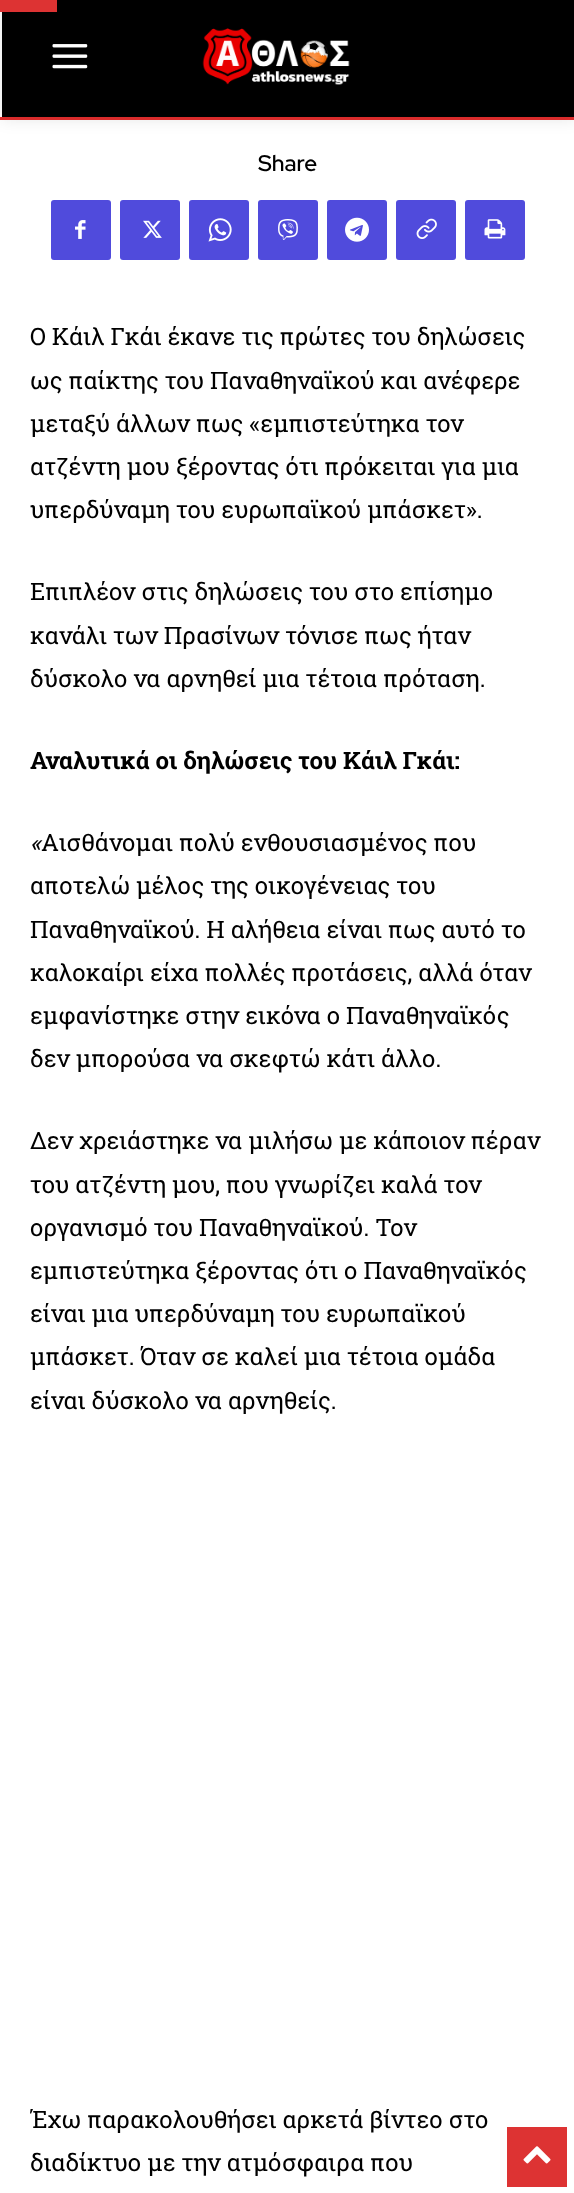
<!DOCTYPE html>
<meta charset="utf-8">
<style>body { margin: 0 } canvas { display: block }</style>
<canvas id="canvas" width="574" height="2193"></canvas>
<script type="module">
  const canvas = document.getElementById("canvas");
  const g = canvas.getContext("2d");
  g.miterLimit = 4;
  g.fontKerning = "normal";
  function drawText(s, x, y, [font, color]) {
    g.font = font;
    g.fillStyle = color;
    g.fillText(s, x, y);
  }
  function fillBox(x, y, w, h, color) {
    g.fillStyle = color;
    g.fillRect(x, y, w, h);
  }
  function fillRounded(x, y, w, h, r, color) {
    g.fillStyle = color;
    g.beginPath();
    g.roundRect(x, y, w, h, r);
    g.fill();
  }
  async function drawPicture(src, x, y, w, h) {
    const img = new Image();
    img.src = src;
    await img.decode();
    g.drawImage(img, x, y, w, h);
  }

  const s1 = ["600 22.5px Red Hat Display", "#000000"];
  const s2 = ["24px Roboto Slab", "#000000"];
  const s3 = ["bold 24px Roboto Slab", "#000000"];
  const s4 = ["italic 24px Roboto Slab", "#000000"];

  fillBox(0, 0, 574, 2193, "#FFFFFF");
  fillBox(0, 117, 574, 3, "#E52E2E");
  fillBox(2, 0, 572, 117, "#000000");
  await drawPicture("pic1.png", 52, 44, 36, 25);
  await drawPicture("pic2.png", 202, 28, 148, 57);
  g.save();
  g.beginPath();
  g.moveTo(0, 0);
  g.lineTo(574, 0);
  g.lineTo(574, 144);
  g.lineTo(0, 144);
  g.closePath();
  g.moveTo(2, 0);
  g.lineTo(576, 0);
  g.lineTo(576, 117);
  g.lineTo(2, 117);
  g.closePath();
  g.clip("evenodd");
  g.fillStyle = "rgba(0, 0, 0, 0.09)";
  g.filter = "blur(7.5px)";
  g.beginPath();
  g.rect(2, 3, 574, 117);
  g.fill();
  g.filter = "none";
  g.restore();
  fillBox(0, 0, 57, 12, "#DD3333");
  drawText("Share", 258, 171, s1);
  fillRounded(51, 200, 60, 60, 3, "#504BDC");
  await drawPicture("pic3.png", 75, 220, 11, 19);
  fillRounded(120, 200, 60, 60, 3, "#504BDC");
  await drawPicture("pic4.png", 143, 220, 19, 18);
  fillRounded(189, 200, 60, 60, 3, "#504BDC");
  await drawPicture("pic5.png", 208, 218, 24, 24);
  fillRounded(258, 200, 60, 60, 3, "#504BDC");
  await drawPicture("pic6.png", 278, 219, 20, 21);
  fillRounded(327, 200, 60, 60, 3, "#504BDC");
  await drawPicture("pic7.png", 345, 217, 24, 25);
  fillRounded(396, 200, 60, 60, 3, "#504BDC");
  await drawPicture("pic8.png", 416, 218, 21, 21);
  fillRounded(465, 200, 60, 60, 3, "#504BDC");
  await drawPicture("pic9.png", 484, 219, 22, 20);
  drawText("Ο Κάιλ Γκάι έκανε τις πρώτες του δηλώσεις", 30, 345, s2);
  drawText("ως παίκτης του Παναθηναϊκού και ανέφερε", 30, 389, s2);
  drawText("μεταξύ άλλων πως «εμπιστεύτηκα τον", 30, 432, s2);
  drawText("ατζέντη μου ξέροντας ότι πρόκειται για μια", 30, 475, s2);
  drawText("υπερδύναμη του ευρωπαϊκού μπάσκετ».", 30, 518, s2);
  drawText("Επιπλέον στις δηλώσεις του στο επίσημο", 30, 600, s2);
  drawText("κανάλι των Πρασίνων τόνισε πως ήταν", 30, 644, s2);
  drawText("δύσκολο να αρνηθεί μια τέτοια πρόταση.", 30, 687, s2);
  drawText("Αναλυτικά οι δηλώσεις του Κάιλ Γκάι:", 30, 769, s3);
  drawText("«", 30, 851, s4);
  drawText("Αισθάνομαι πολύ ενθουσιασμένος που", 41, 851, s2);
  drawText("αποτελώ μέλος της οικογένειας του", 30, 894, s2);
  drawText("Παναθηναϊκού. Η αλήθεια είναι πως αυτό το", 30, 938, s2);
  drawText("καλοκαίρι είχα πολλές προτάσεις, αλλά όταν", 30, 981, s2);
  drawText("εμφανίστηκε στην εικόνα ο Παναθηναϊκός", 30, 1024, s2);
  drawText("δεν μπορούσα να σκεφτώ κάτι άλλο.", 30, 1067, s2);
  drawText("Δεν χρειάστηκε να μιλήσω με κάποιον πέραν", 30, 1149, s2);
  drawText("του ατζέντη μου, που γνωρίζει καλά τον", 30, 1193, s2);
  drawText("οργανισμό του Παναθηναϊκού. Τον", 30, 1236, s2);
  drawText("εμπιστεύτηκα ξέροντας ότι ο Παναθηναϊκός", 30, 1279, s2);
  drawText("είναι μια υπερδύναμη του ευρωπαϊκού", 30, 1322, s2);
  drawText("μπάσκετ. Όταν σε καλεί μια τέτοια ομάδα", 30, 1365, s2);
  drawText("είναι δύσκολο να αρνηθείς.", 30, 1409, s2);
  drawText("Έχω παρακολουθήσει αρκετά βίντεο στο", 30, 2128, s2);
  drawText("διαδίκτυο με την ατμόσφαιρα που", 30, 2171, s2);
  fillBox(507, 2127, 60, 60, "#DD3333");
  await drawPicture("pic10.png", 523, 2146, 28, 18);
</script>
